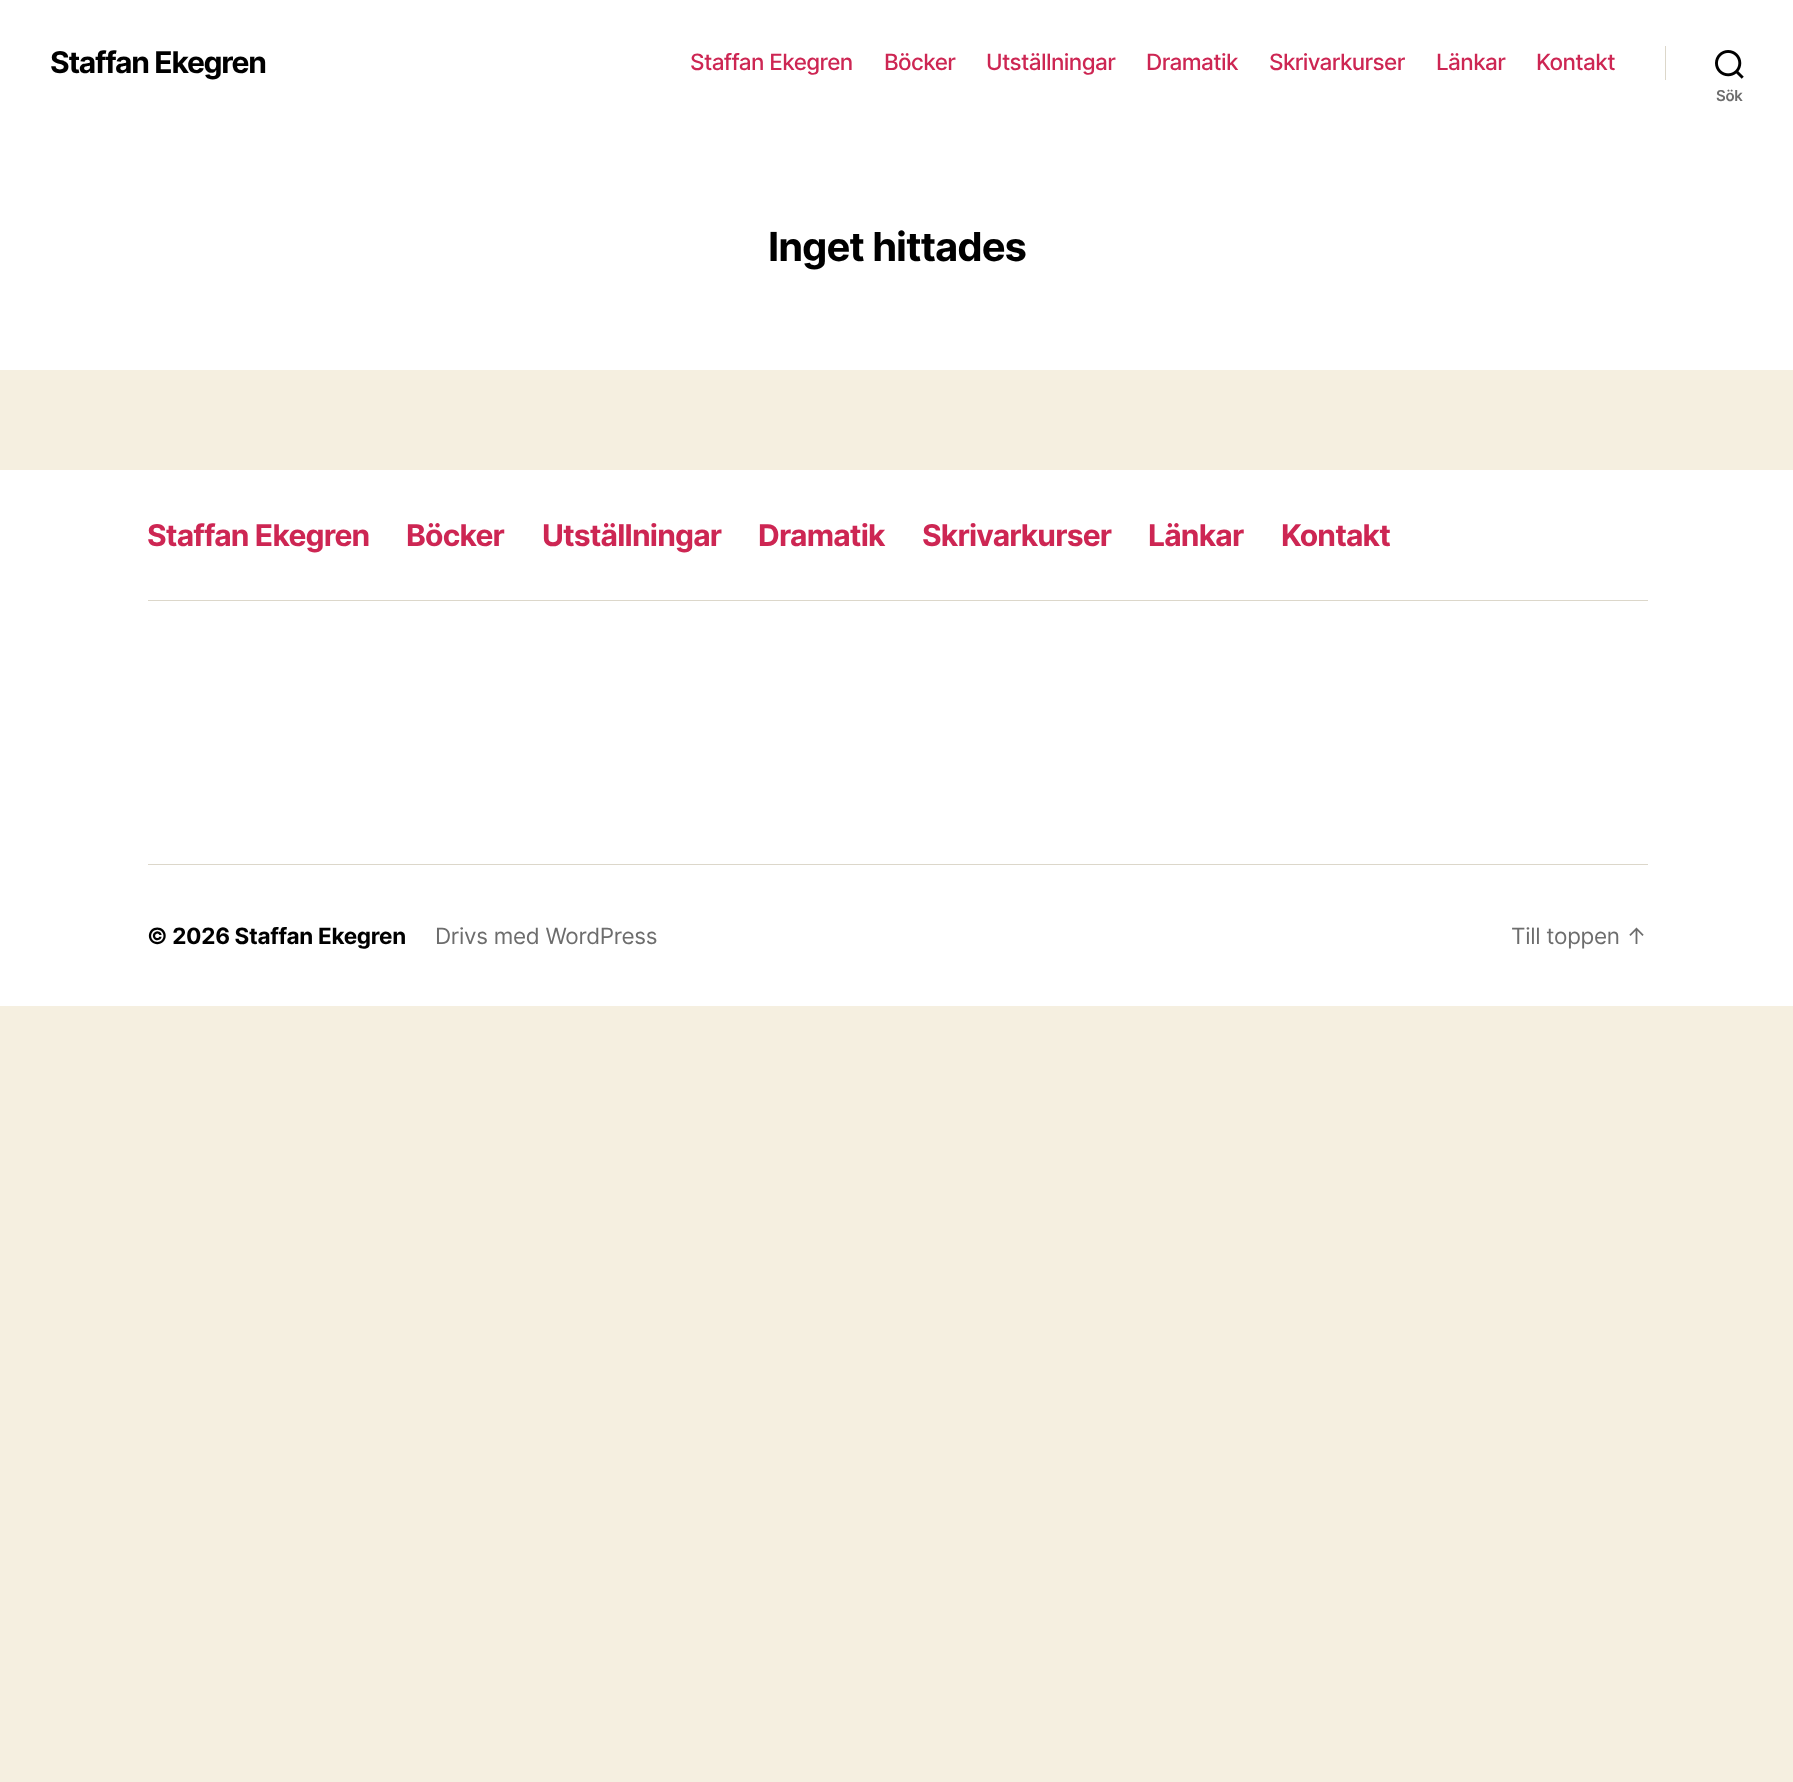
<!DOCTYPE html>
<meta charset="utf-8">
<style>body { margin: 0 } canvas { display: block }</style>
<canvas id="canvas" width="1793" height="1782"></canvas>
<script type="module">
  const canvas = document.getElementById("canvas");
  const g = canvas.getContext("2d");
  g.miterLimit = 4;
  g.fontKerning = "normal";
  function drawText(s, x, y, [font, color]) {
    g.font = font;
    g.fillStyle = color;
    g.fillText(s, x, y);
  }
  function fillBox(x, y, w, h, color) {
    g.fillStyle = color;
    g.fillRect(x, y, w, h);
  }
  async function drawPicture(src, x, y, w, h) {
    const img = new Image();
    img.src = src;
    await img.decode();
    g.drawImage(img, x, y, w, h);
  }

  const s1 = ["bold 30px Inter", "#000000"];
  const s2 = ["500 22.5px Inter", "#CD2653"];
  const s3 = ["600 15px Inter", "#6D6D6D"];
  const s4 = ["bold 40px Inter", "#000000"];
  const s5 = ["bold 30px Inter", "#CD2653"];
  const s6 = ["bold 22.5px Inter", "#000000"];
  const s7 = ["22.5px Inter", "#6D6D6D"];

  fillBox(0, 0, 1793, 1782, "#F5EFE0");
  fillBox(0, 0, 1793, 370, "#FFFFFF");
  g.letterSpacing = "-1.25px";
  drawText("Staffan Ekegren", 50, 73, s1);
  g.letterSpacing = "-0.6px";
  drawText("Staffan Ekegren", 690, 70, s2);
  drawText("Böcker", 884, 70, s2);
  drawText("Utställningar", 986, 70, s2);
  drawText("Dramatik", 1146, 70, s2);
  drawText("Skrivarkurser", 1269, 70, s2);
  drawText("Länkar", 1436, 70, s2);
  drawText("Kontakt", 1536, 70, s2);
  fillBox(1665, 46, 1, 34, "#DCD7CA");
  await drawPicture("pic1.png", 1715, 50, 29, 29);
  g.letterSpacing = "-0.3px";
  drawText("Sök", 1716, 101, s3);
  g.letterSpacing = "-1px";
  drawText("Inget hittades", 768, 261, s4);
  fillBox(0, 470, 1793, 536, "#FFFFFF");
  fillBox(148, 600, 1500, 1, "#DCD7CA");
  g.letterSpacing = "-0.8px";
  drawText("Staffan Ekegren", 147, 546, s5);
  drawText("Böcker", 406, 546, s5);
  drawText("Utställningar", 542, 546, s5);
  drawText("Dramatik", 758, 546, s5);
  drawText("Skrivarkurser", 922, 546, s5);
  drawText("Länkar", 1148, 546, s5);
  drawText("Kontakt", 1281, 546, s5);
  fillBox(148, 864, 1500, 1, "#DCD7CA");
  g.letterSpacing = "-0.3px";
  drawText("© 2026 Staffan Ekegren", 147, 944, s6);
  drawText("Drivs med WordPress", 435, 944, s7);
  drawText("Till toppen ↑", 1511, 944, s7);
</script>
